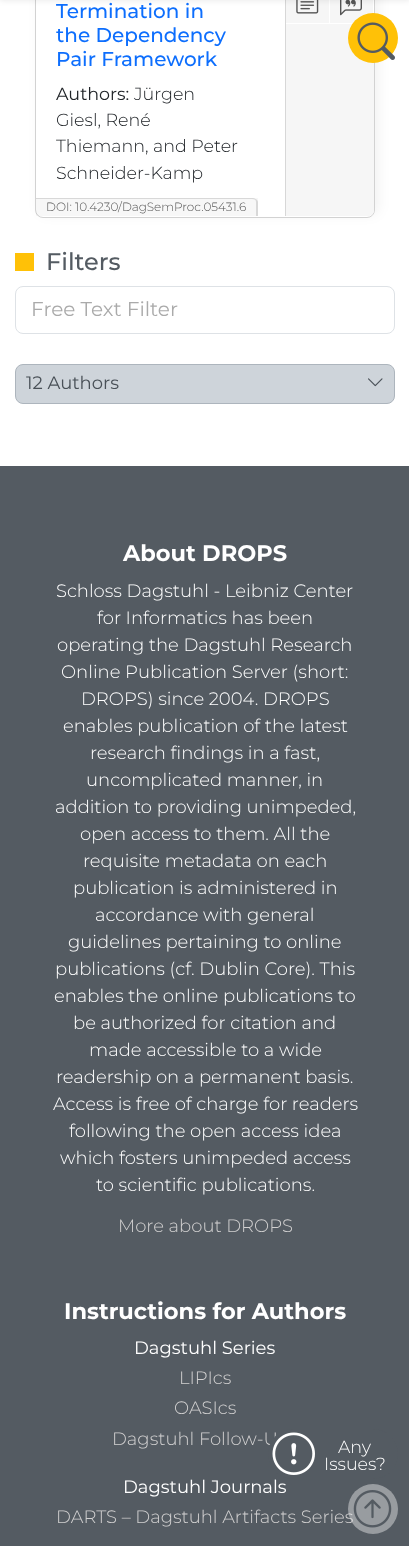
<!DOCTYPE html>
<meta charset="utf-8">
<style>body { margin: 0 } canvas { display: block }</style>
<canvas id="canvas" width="409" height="1546"></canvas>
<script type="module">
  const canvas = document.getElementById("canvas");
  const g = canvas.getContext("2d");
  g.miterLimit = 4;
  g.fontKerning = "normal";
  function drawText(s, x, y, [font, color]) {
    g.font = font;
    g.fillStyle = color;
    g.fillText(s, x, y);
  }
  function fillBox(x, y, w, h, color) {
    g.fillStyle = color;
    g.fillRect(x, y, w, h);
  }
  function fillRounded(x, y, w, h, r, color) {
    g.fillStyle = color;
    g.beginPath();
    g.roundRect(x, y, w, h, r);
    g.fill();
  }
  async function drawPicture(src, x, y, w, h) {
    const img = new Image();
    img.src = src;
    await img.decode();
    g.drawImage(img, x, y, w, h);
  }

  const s1 = ["500 20px Montserrat", "#0D6EFD"];
  const s2 = ["17.5px Montserrat", "#212529"];
  const s3 = ["300 17.5px Montserrat", "#212529"];
  const s4 = ["300 12px Montserrat", "#555555"];
  const s5 = ["500 24px Montserrat", "#545B62"];
  const s6 = ["20px Montserrat", "#AAAAAA"];
  const s7 = ["18px Montserrat", "#495057"];
  const s8 = ["bold 22.5px Montserrat", "#FFFFFF"];
  const s9 = ["300 18px Montserrat", "#FFFFFF"];
  const s10 = ["300 18px Montserrat", "#D2D1D1"];
  const s11 = ["18px Montserrat", "#FFFFFF"];
  const s12 = ["300 17.5px Montserrat", "#FFFFFF"];

  fillBox(0, 0, 409, 1546, "#FFFFFF");
  g.fillStyle = "rgba(0, 0, 0, 0.05)";
  g.filter = "blur(6px)";
  g.beginPath();
  g.roundRect(39, -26, 340, 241, 8);
  g.fill();
  g.filter = "none";
  g.fillStyle = "#FFFFFF";
  g.beginPath();
  g.roundRect(35.5, -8.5, 339, 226, 7.5);
  g.fill();
  g.strokeStyle = "#D2D2D2";
  g.stroke();
  g.fillStyle = "#F6F6F6";
  g.beginPath();
  g.moveTo(285, -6);
  g.lineTo(368, -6);
  g.bezierCurveTo(371.5, -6, 374, -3.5, 374, 0);
  g.lineTo(374, 210);
  g.bezierCurveTo(374, 213.5, 371.5, 216, 368, 216);
  g.lineTo(285, 216);
  g.closePath();
  g.fill();
  fillBox(285, 0, 1, 216, "#D7D7D7");
  fillBox(329, 0, 1, 24, "#FFFFFF");
  await drawPicture("pic1.png", 296, 0, 23, 14);
  fillBox(373, 0, 1, 14, "#FFFFFF");
  await drawPicture("pic2.png", 340, 0, 22, 16);
  g.fillStyle = "rgba(0, 0, 0, 0.1)";
  g.filter = "blur(3px)";
  g.beginPath();
  g.rect(0, -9, 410, 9);
  g.fill();
  g.filter = "none";
  drawText("Termination in", 56, 18, s1);
  drawText("the Dependency", 56, 42, s1);
  drawText("Pair Framework", 56, 66, s1);
  drawText("Authors:", 56, 100, s2);
  drawText("Jürgen", 134, 100, s3);
  drawText("Giesl, René", 56, 126, s3);
  drawText("Thiemann, and Peter", 56, 152, s3);
  drawText("Schneider-Kamp", 56, 179, s3);
  fillBox(286, 23, 67, 1, "#FFFFFF");
  fillBox(36, 198, 222, 18, "rgba(0, 0, 0, 0.03)");
  g.fillStyle = "#D8D8D8";
  g.beginPath();
  g.moveTo(36, 198);
  g.lineTo(252, 198);
  g.bezierCurveTo(255, 198, 258, 200, 258, 202);
  g.lineTo(258, 216);
  g.lineTo(36, 216);
  g.closePath();
  g.moveTo(36, 199);
  g.lineTo(252, 199);
  g.bezierCurveTo(255, 199, 256, 200, 256, 202);
  g.lineTo(256, 216);
  g.lineTo(36, 216);
  g.closePath();
  g.fill("evenodd");
  drawText("DOI: 10.4230/DagSemProc.05431.6", 46, 211, s4);
  fillBox(15, 253, 19, 18, "#FFC107");
  drawText("Filters", 46, 270, s5);
  g.beginPath();
  g.roundRect(15.5, 286.5, 379, 47, 7.5);
  g.strokeStyle = "#DEE2E6";
  g.stroke();
  drawText("Free Text Filter", 31, 316, s6);
  g.fillStyle = "#CED4DA";
  g.beginPath();
  g.roundRect(15.5, 364.5, 379, 39, 7.5);
  g.fill();
  g.strokeStyle = "#ADB5BD";
  g.stroke();
  drawText("12 Authors", 26, 389, s7);
  await drawPicture("pic3.png", 368, 378, 15, 9);
  g.fillStyle = "#FFC107";
  g.beginPath();
  g.arc(373, 38, 25, 0, Math.PI * 2);
  g.fill();
  await drawPicture("pic4.png", 357, 22, 38, 38);
  fillBox(0, 466, 409, 1080, "#545B62");
  drawText("About DROPS", 123, 561, s8);
  drawText("Schloss Dagstuhl - Leibniz Center", 56, 597, s9);
  drawText("for Informatics has been", 97, 624, s9);
  drawText("operating the Dagstuhl Research", 57, 651, s9);
  drawText("Online Publication Server (short:", 61, 678, s9);
  drawText("DROPS) since 2004. DROPS", 81, 705, s9);
  drawText("enables publication of the latest", 63, 732, s9);
  drawText("research findings in a fast,", 90, 759, s9);
  drawText("uncomplicated manner, in", 86, 786, s9);
  drawText("addition to providing unimpeded,", 55, 813, s9);
  drawText("open access to them. All the", 80, 840, s9);
  drawText("requisite metadata on each", 83, 867, s9);
  drawText("publication is administered in", 73, 894, s9);
  drawText("accordance with general", 95, 921, s9);
  drawText("guidelines pertaining to online", 68, 948, s9);
  drawText("publications (cf. Dublin Core). This", 55, 975, s9);
  drawText("enables the online publications to", 54, 1002, s9);
  drawText("be authorized for citation and", 73, 1029, s9);
  drawText("made accessible to a wide", 89, 1056, s9);
  drawText("readership on a permanent basis.", 56, 1083, s9);
  drawText("Access is free of charge for readers", 53, 1110, s9);
  drawText("following the open access idea", 69, 1137, s9);
  drawText("which fosters unimpeded access", 60, 1164, s9);
  drawText("to scientific publications.", 96, 1191, s9);
  drawText("More about DROPS", 118, 1232, s10);
  drawText("Instructions for Authors", 64, 1319, s8);
  drawText("Dagstuhl Series", 134, 1354, s11);
  drawText("LIPIcs", 179, 1384, s10);
  drawText("OASIcs", 174, 1414, s10);
  drawText("Dagstuhl Follow-U", 112, 1445, s10);
  drawText("Dagstuhl Journals", 123, 1493, s11);
  drawText("DARTS – Dagstuhl Artifacts Series", 56, 1523, s10);
  fillRounded(268, 1429, 130, 50, 25, "#545B62");
  await drawPicture("pic5.png", 272, 1432, 43, 43);
  drawText("Any", 338, 1453, s12);
  drawText("Issues?", 324, 1470, s12);
  g.fillStyle = "rgba(255, 255, 255, 0.4)";
  g.beginPath();
  g.arc(373, 1509, 25, 0, Math.PI * 2);
  g.fill();
  await drawPicture("pic6.png", 353, 1490, 39, 38);
</script>
